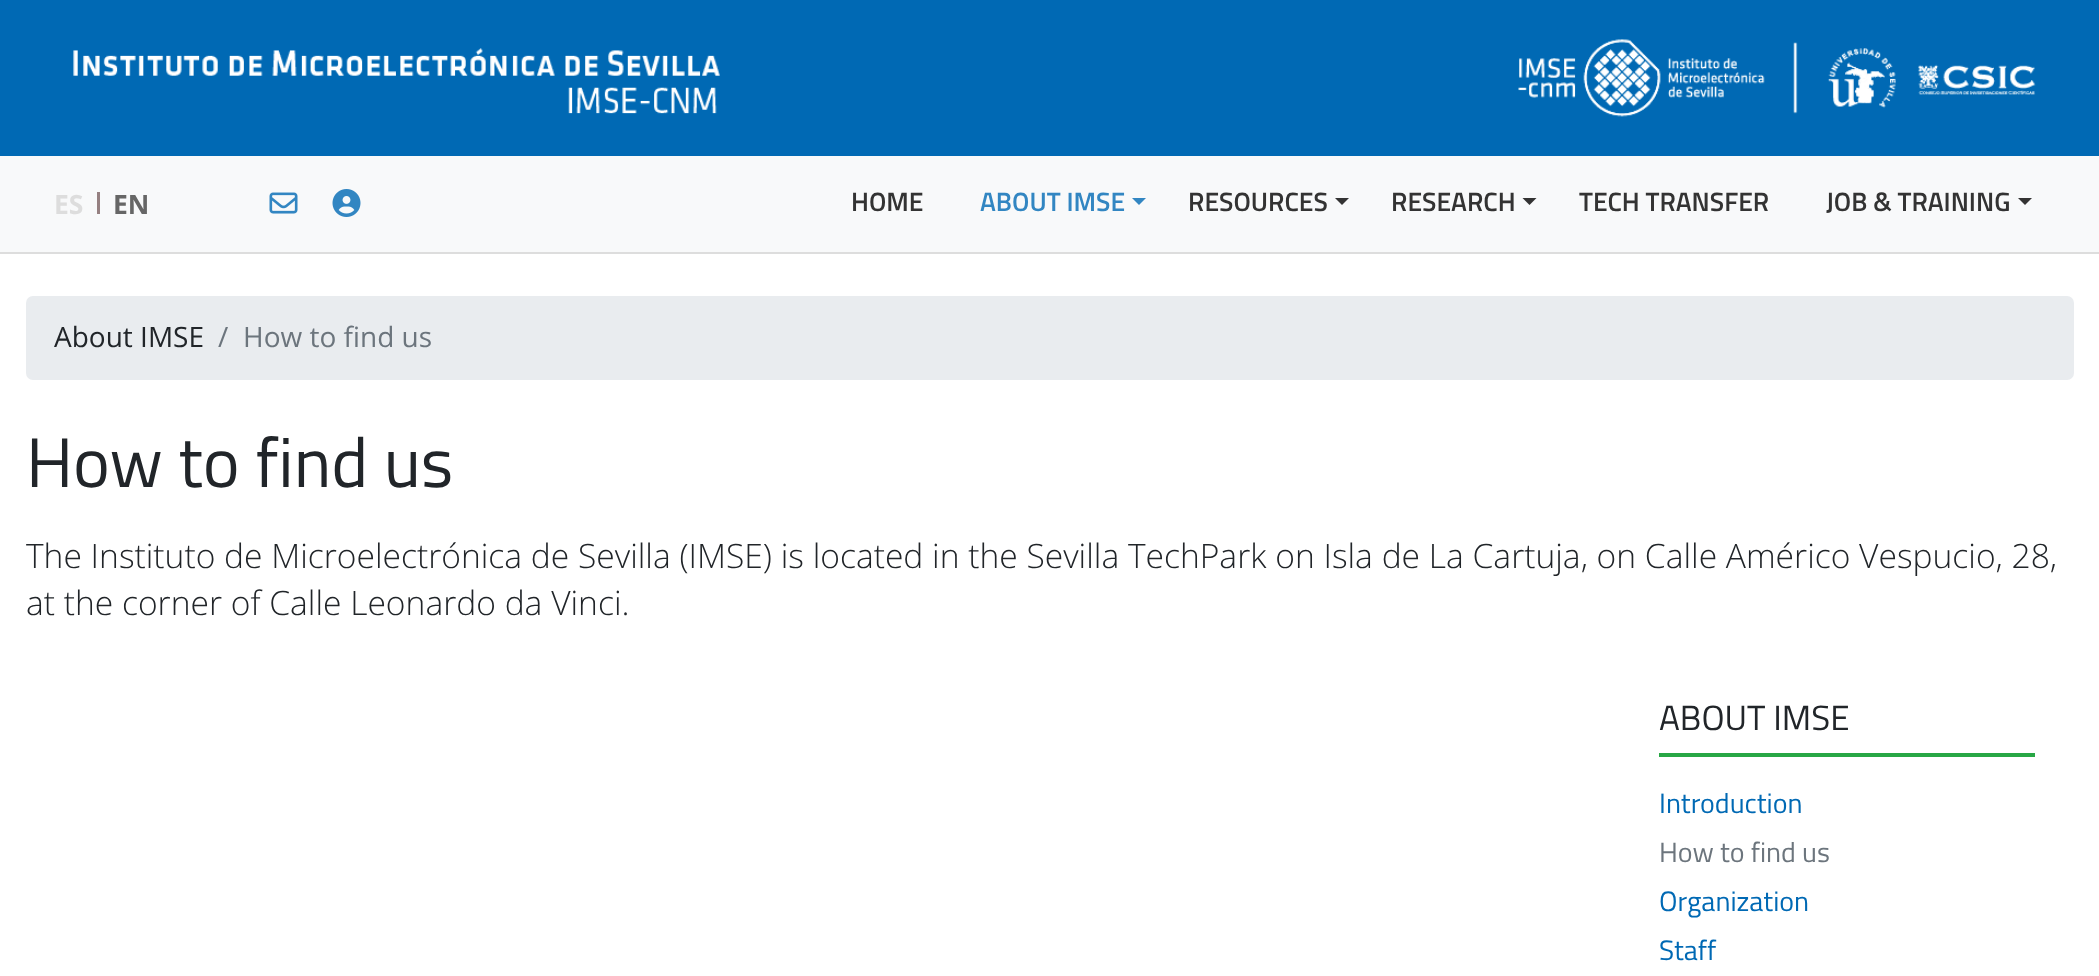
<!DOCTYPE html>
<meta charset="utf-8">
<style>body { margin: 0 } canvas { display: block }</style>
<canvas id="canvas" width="2099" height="976"></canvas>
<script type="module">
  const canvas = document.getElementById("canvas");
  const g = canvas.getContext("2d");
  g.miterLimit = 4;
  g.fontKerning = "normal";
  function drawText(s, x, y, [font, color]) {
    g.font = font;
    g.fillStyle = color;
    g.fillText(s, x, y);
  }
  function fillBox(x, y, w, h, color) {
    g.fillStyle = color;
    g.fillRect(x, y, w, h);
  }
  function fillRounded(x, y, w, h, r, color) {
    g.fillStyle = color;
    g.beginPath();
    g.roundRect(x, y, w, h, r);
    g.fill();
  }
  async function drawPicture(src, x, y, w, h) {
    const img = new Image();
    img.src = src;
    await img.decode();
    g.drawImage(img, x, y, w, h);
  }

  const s1 = ["bold 26.5px Open Sans", "#DDDDDD"];
  const s2 = ["bold 26.5px Open Sans", "#666666"];
  const s3 = ["600 26.5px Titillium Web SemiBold", "#333333"];
  const s4 = ["600 26.5px Titillium Web SemiBold", "#3286C2"];
  const s5 = ["28px Open Sans", "#212529"];
  const s6 = ["28px Open Sans", "#6C757D"];
  const s7 = ["70px Titillium Web", "#212529"];
  const s8 = ["300 33.6px Open Sans", "#212529"];
  const s9 = ["35px Titillium Web", "#212529"];
  const s10 = ["28px Titillium Web", "#0069B4"];
  const s11 = ["28px Titillium Web", "#6C757D"];

  fillBox(0, 0, 2099, 976, "#FFFFFF");
  fillBox(0, 0, 2099, 156, "#0069B4");
  await drawPicture("pic1.png", 73, 39, 1963, 78);
  fillBox(0, 156, 2099, 96, "#F8F9FA");
  fillBox(0, 252, 2099, 2, "#DDDDDD");
  drawText("ES", 54, 214, s1);
  fillBox(97, 192, 3, 22, "#958081");
  drawText("EN", 113, 214, s2);
  await drawPicture("pic2.png", 269, 192, 29, 22);
  await drawPicture("pic3.png", 332, 189, 29, 28);
  drawText("HOME", 851, 211, s3);
  drawText("ABOUT IMSE", 980, 211, s4);
  g.beginPath();
  g.moveTo(1132, 198);
  g.lineTo(1146, 198);
  g.lineTo(1139, 205);
  g.closePath();
  g.fill();
  drawText("RESOURCES", 1188, 211, s3);
  g.beginPath();
  g.moveTo(1335, 198);
  g.lineTo(1349, 198);
  g.lineTo(1342, 205);
  g.closePath();
  g.fill();
  drawText("RESEARCH", 1391, 211, s3);
  g.beginPath();
  g.moveTo(1522.5, 198);
  g.lineTo(1536.5, 198);
  g.lineTo(1529.5, 205);
  g.closePath();
  g.fill();
  drawText("TECH TRANSFER", 1579, 211, s3);
  drawText("JOB & TRAINING", 1826, 211, s3);
  g.beginPath();
  g.moveTo(2018, 198);
  g.lineTo(2032, 198);
  g.lineTo(2025, 205);
  g.closePath();
  g.fill();
  fillRounded(26, 296, 2048, 84, 7, "#E9ECEF");
  drawText("About IMSE", 54, 347, s5);
  drawText("/", 218, 347, s6);
  drawText("How to find us", 243, 347, s6);
  drawText("How to find us", 26, 487, s7);
  drawText("The Instituto de Microelectrónica de Sevilla (IMSE) is located in the Sevilla TechPark on Isla de La Cartuja, on Calle Américo Vespucio, 28,", 26, 568, s8);
  drawText("at the corner of Calle Leonardo da Vinci.", 26, 615, s8);
  drawText("ABOUT IMSE", 1659, 730, s9);
  fillBox(1659, 753, 376, 4, "#28A745");
  drawText("Introduction", 1659, 813, s10);
  drawText("How to find us", 1659, 862, s11);
  drawText("Organization", 1659, 911, s10);
  drawText("Staff", 1659, 960, s10);
</script>
